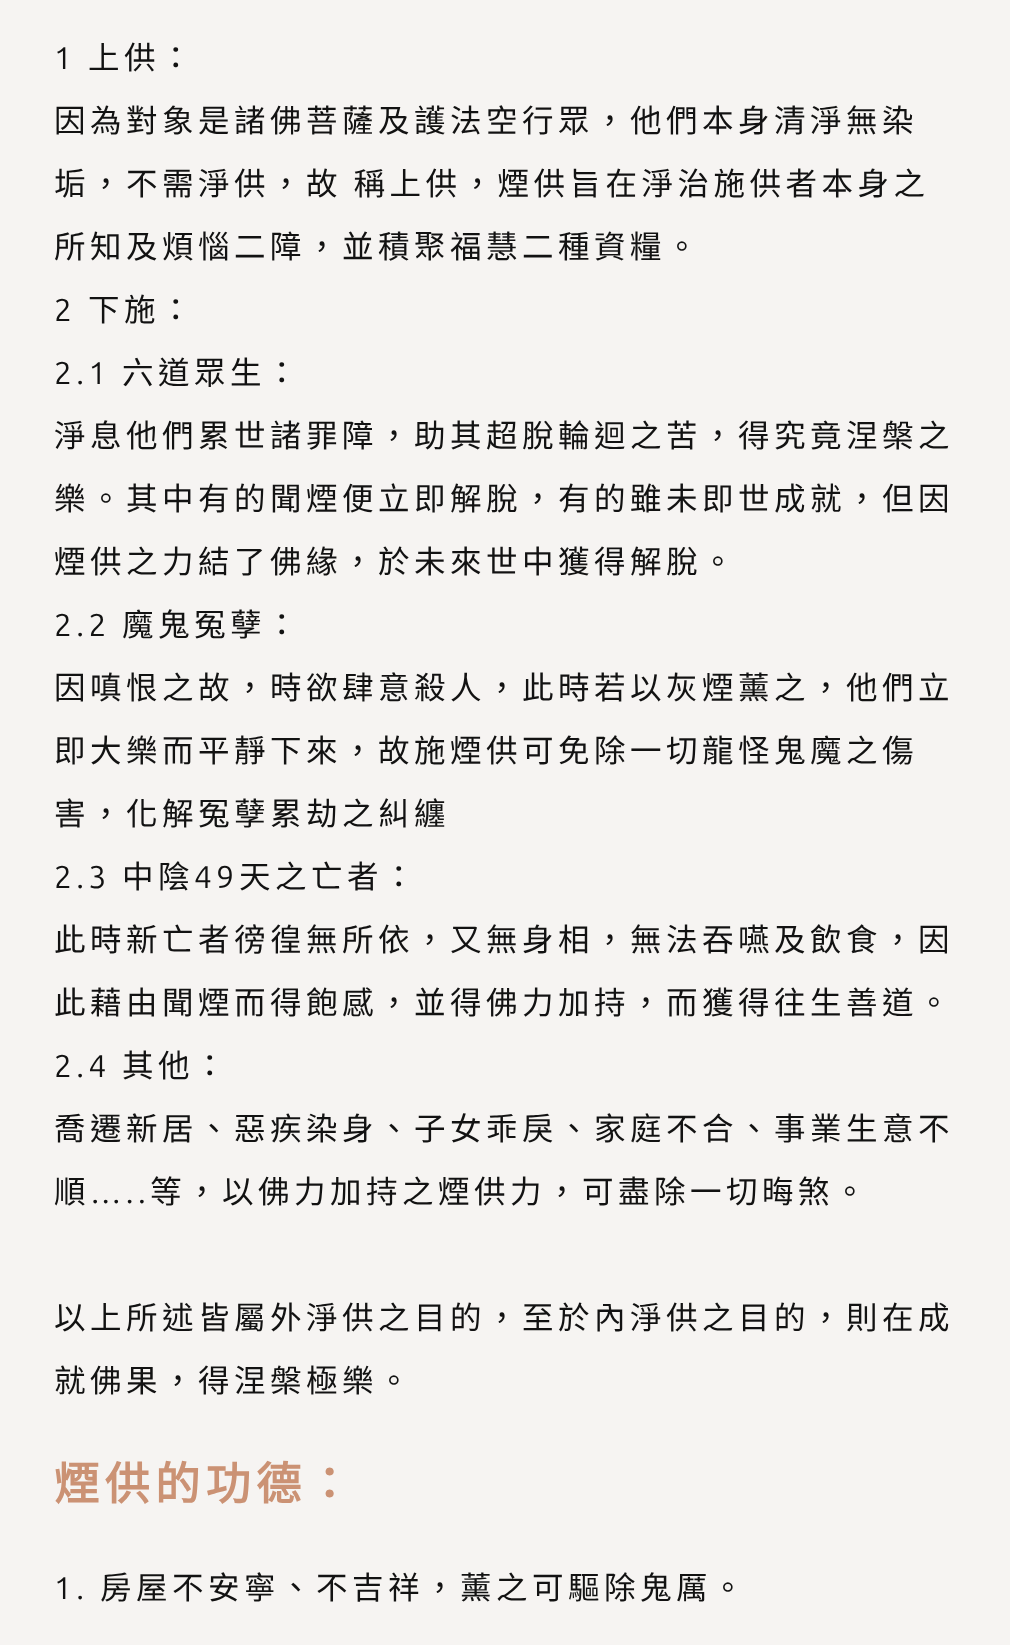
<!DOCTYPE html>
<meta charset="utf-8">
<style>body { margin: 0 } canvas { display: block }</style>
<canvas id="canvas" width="1010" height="1645"></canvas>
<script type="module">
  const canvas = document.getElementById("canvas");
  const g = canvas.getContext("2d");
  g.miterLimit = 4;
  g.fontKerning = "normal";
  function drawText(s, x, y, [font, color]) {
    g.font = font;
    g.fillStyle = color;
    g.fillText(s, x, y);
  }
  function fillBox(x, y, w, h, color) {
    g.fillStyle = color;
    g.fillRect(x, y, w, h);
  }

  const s1 = ["31.5px Ubuntu", "#121212"];
  const s2 = ["31.5px Noto Sans CJK TC", "#121212"];
  const s3 = ["bold 45px Noto Sans CJK TC", "#CB9274"];

  fillBox(0, 0, 1010, 1645, "#F6F4F2");
  g.letterSpacing = "4.5px";
  drawText("1", 54, 69, s1);
  drawText("上供：", 88, 69, s2);
  drawText("因為對象是諸佛菩薩及護法空行眾，他們本身清淨無染", 54, 132, s2);
  drawText("垢，不需淨供，故 稱上供，煙供旨在淨治施供者本身之", 54, 195, s2);
  drawText("所知及煩惱二障，並積聚福慧二種資糧。", 54, 258, s2);
  drawText("2", 54, 321, s1);
  drawText("下施：", 88, 321, s2);
  drawText("2.1", 54, 384, s1);
  drawText("六道眾生：", 122, 384, s2);
  drawText("淨息他們累世諸罪障，助其超脫輪迴之苦，得究竟涅槃之", 54, 447, s2);
  drawText("樂。其中有的聞煙便立即解脫，有的雖未即世成就，但因", 54, 510, s2);
  drawText("煙供之力結了佛緣，於未來世中獲得解脫。", 54, 573, s2);
  drawText("2.2", 54, 636, s1);
  drawText("魔鬼冤孽：", 122, 636, s2);
  drawText("因嗔恨之故，時欲肆意殺人，此時若以灰煙薰之，他們立", 54, 699, s2);
  drawText("即大樂而平靜下來，故施煙供可免除一切龍怪鬼魔之傷", 54, 762, s2);
  drawText("害，化解冤孽累劫之糾纏", 54, 825, s2);
  drawText("2.3", 54, 888, s1);
  drawText("中陰", 122, 888, s2);
  drawText("49", 194, 888, s1);
  drawText("天之亡者：", 239, 888, s2);
  drawText("此時新亡者徬徨無所依，又無身相，無法吞嚥及飲食，因", 54, 951, s2);
  drawText("此藉由聞煙而得飽感，並得佛力加持，而獲得往生善道。", 54, 1014, s2);
  drawText("2.4", 54, 1077, s1);
  drawText("其他：", 122, 1077, s2);
  drawText("喬遷新居、惡疾染身、子女乖戾、家庭不合、事業生意不", 54, 1140, s2);
  drawText("順", 54, 1203, s2);
  drawText("…..", 90, 1203, s1);
  drawText("等，以佛力加持之煙供力，可盡除一切晦煞。", 150, 1203, s2);
  drawText("以上所述皆屬外淨供之目的，至於內淨供之目的，則在成", 54, 1329, s2);
  drawText("就佛果，得涅槃極樂。", 54, 1392, s2);
  g.letterSpacing = "5.5px";
  drawText("煙供的功德：", 54, 1500, s3);
  g.letterSpacing = "4.5px";
  drawText("1.", 54, 1599, s1);
  drawText("房屋不安寧、不吉祥，薰之可驅除鬼厲。", 100, 1599, s2);
</script>
